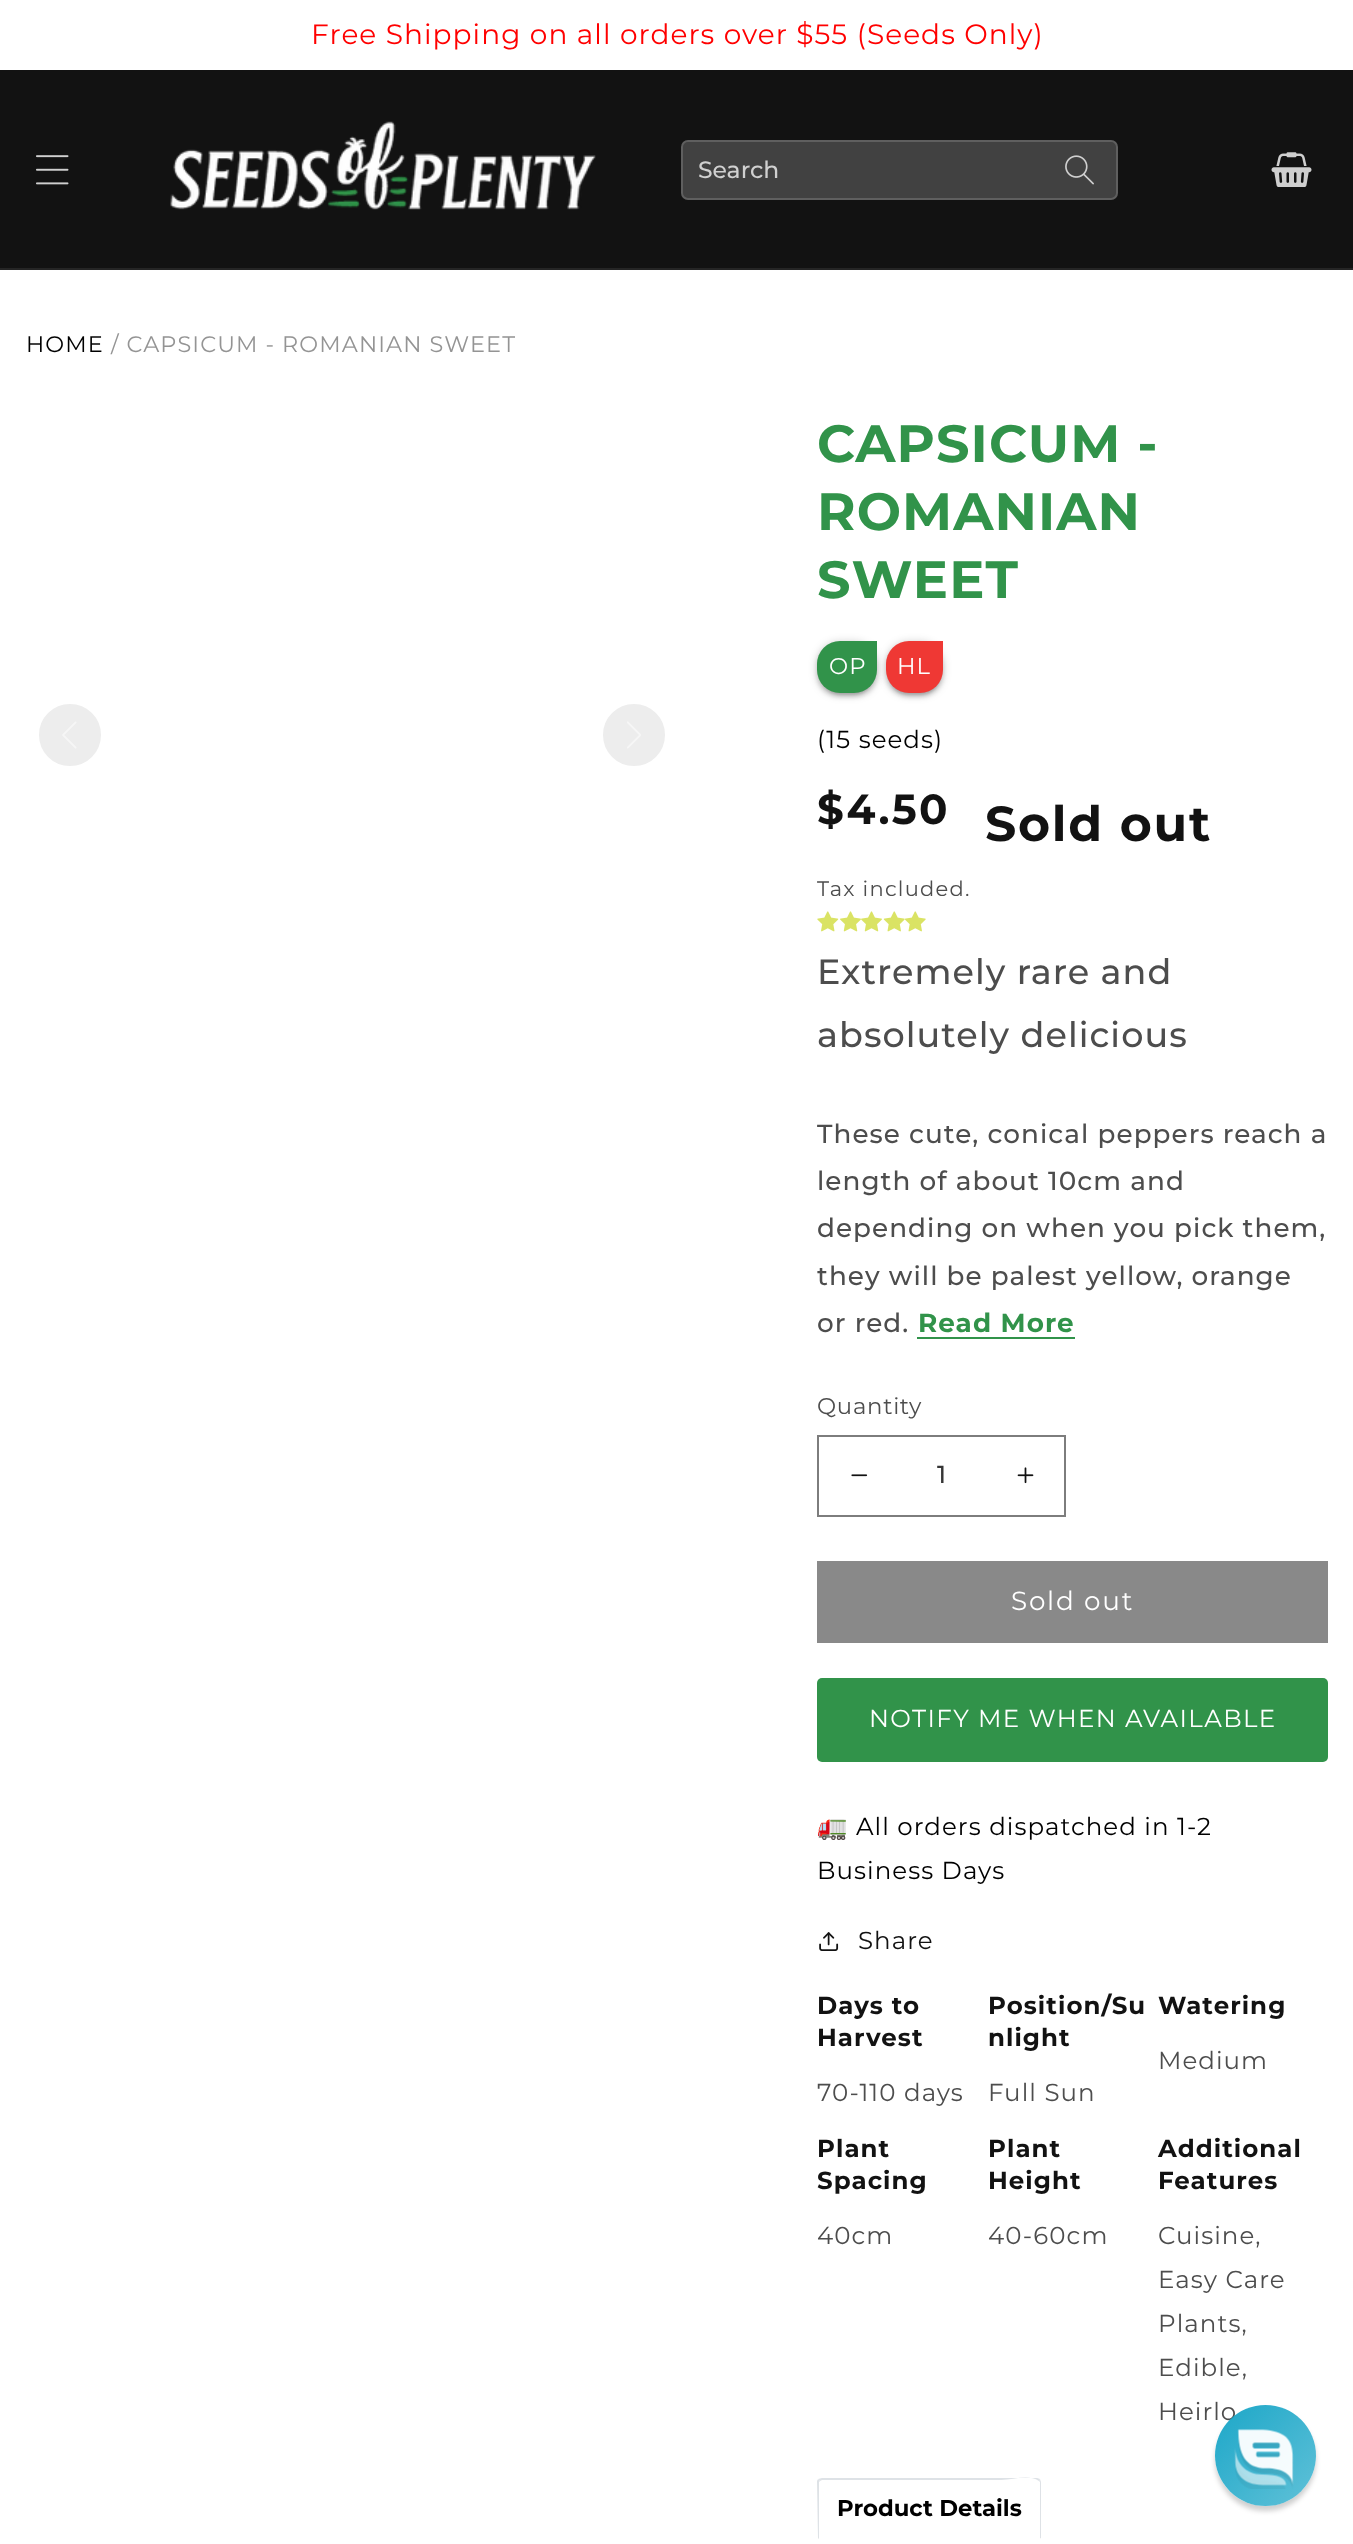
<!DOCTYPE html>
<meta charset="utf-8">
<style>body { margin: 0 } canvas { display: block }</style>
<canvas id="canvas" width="1353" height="2544"></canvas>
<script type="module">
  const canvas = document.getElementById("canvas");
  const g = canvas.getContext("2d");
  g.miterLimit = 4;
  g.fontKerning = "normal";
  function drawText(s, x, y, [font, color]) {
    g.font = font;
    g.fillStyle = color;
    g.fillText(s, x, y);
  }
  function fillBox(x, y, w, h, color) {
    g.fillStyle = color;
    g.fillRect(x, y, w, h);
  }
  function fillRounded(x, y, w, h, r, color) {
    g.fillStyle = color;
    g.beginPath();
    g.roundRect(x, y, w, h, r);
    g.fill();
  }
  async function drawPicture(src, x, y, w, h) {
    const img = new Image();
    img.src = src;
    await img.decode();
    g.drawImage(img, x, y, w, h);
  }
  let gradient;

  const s1 = ["28px Montserrat", "#FF0000"];
  const s2 = ["500 23.5px Montserrat", "#D0D0D0"];
  const s3 = ["22.4px Montserrat", "#000000"];
  const s4 = ["22.4px Montserrat", "#949494"];
  const s5 = ["bold 52.5px Montserrat", "#31934A"];
  const s6 = ["22.75px Montserrat", "#FFFFFF"];
  const s7 = ["24.5px Montserrat", "#000000"];
  const s8 = ["bold 42px Montserrat", "#121212"];
  const s9 = ["bold 49px Montserrat", "#121212"];
  const s10 = ["21px Montserrat", "#4D4D4D"];
  const s11 = ["500 35px Montserrat", "#4D4D4D"];
  const s12 = ["500 26.25px Montserrat", "#4D4D4D"];
  const s13 = ["bold 26.25px Montserrat", "#31934A"];
  const s14 = ["22.75px Montserrat", "#4D4D4D"];
  const s15 = ["500 24.5px Montserrat", "#363636"];
  const s16 = ["26.25px Montserrat", "#FFFFFF"];
  const s17 = ["24.5px Montserrat", "#FFFFFF"];
  const s18 = ["24.5px Noto Color Emoji", "#000000"];
  const s19 = ["24.5px Montserrat", "#121212"];
  const s20 = ["bold 24.5px Montserrat", "#121212"];
  const s21 = ["24.5px Montserrat", "#4D4D4D"];
  const s22 = ["bold 22.75px Montserrat", "#000000"];

  fillBox(0, 0, 1353, 2544, "#FFFFFF");
  g.letterSpacing = "1.05px";
  drawText("Free Shipping on all orders over $55 (Seeds Only)", 311, 44, s1);
  fillBox(0, 70, 1353, 198, "#121212");
  fillBox(0, 268, 1353, 2, "#252525");
  await drawPicture("pic1.png", 36, 155, 33, 30);
  await drawPicture("pic2.png", 170, 121, 426, 89);
  fillRounded(681, 140, 437, 60, 7, "#414141");
  g.beginPath();
  g.roundRect(682, 141, 435, 58, 6);
  g.strokeStyle = "rgba(255, 255, 255, 0.16)";
  g.lineWidth = 2;
  g.stroke();
  g.letterSpacing = "0px";
  drawText("Search", 698, 178, s2);
  await drawPicture("pic3.png", 1065, 155, 29, 30);
  await drawPicture("pic4.png", 1271, 152, 41, 35);
  g.letterSpacing = "1.1px";
  drawText("HOME", 26, 352, s3);
  drawText("/ CAPSICUM - ROMANIAN SWEET", 111, 352, s4);
  g.fillStyle = "#EDEDED";
  g.beginPath();
  g.arc(70, 735, 33, 0, Math.PI * 2);
  g.fill();
  g.strokeStyle = "#FFFFFF";
  g.lineWidth = 4;
  g.stroke();
  await drawPicture("pic5.png", 62, 721, 15, 28);
  g.beginPath();
  g.arc(634, 735, 33, 0, Math.PI * 2);
  g.fill();
  g.stroke();
  await drawPicture("pic6.png", 627, 721, 14, 28);
  g.letterSpacing = "1.05px";
  drawText("CAPSICUM -", 817, 462, s5);
  drawText("ROMANIAN", 817, 530, s5);
  drawText("SWEET", 817, 598, s5);
  g.fillStyle = "rgba(0, 0, 0, 0.2)";
  g.filter = "blur(4.5px)";
  g.beginPath();
  g.roundRect(817, 642, 60, 53, 23);
  g.fill();
  g.filter = "none";
  g.fillStyle = "rgba(0, 0, 0, 0.12)";
  g.filter = "blur(1px)";
  g.beginPath();
  g.roundRect(821, 649, 52, 46, 19);
  g.fill();
  g.filter = "none";
  g.fillStyle = "rgba(0, 0, 0, 0.14)";
  g.filter = "blur(2px)";
  g.beginPath();
  g.roundRect(817, 644, 60, 53, 23);
  g.fill();
  g.filter = "none";
  g.fillStyle = "#31934A";
  g.beginPath();
  g.roundRect(817, 641, 60, 52, [23, 0, 23, 23]);
  g.fill();
  drawText("OP", 829, 674, s6);
  g.fillStyle = "rgba(0, 0, 0, 0.2)";
  g.filter = "blur(4.5px)";
  g.beginPath();
  g.roundRect(886, 642, 57, 53, 23);
  g.fill();
  g.filter = "none";
  g.fillStyle = "rgba(0, 0, 0, 0.12)";
  g.filter = "blur(1px)";
  g.beginPath();
  g.roundRect(889, 649, 51, 46, 19);
  g.fill();
  g.filter = "none";
  g.fillStyle = "rgba(0, 0, 0, 0.14)";
  g.filter = "blur(2px)";
  g.beginPath();
  g.roundRect(886, 644, 57, 53, 23);
  g.fill();
  g.filter = "none";
  g.fillStyle = "#EF3834";
  g.beginPath();
  g.roundRect(886, 641, 57, 52, [23, 0, 23, 23]);
  g.fill();
  drawText("HL", 897, 674, s6);
  drawText("(15 seeds)", 817, 748, s7);
  g.letterSpacing = "2.25px";
  drawText("$4.50", 817, 824, s8);
  g.letterSpacing = "1.75px";
  drawText("Sold out", 985, 841, s9);
  g.letterSpacing = "1.25px";
  drawText("Tax included.", 817, 896, s10);
  await drawPicture("pic7.png", 817, 911, 22, 21);
  await drawPicture("pic8.png", 840, 911, 21, 21);
  await drawPicture("pic8.png", 861, 911, 21, 21);
  await drawPicture("pic9.png", 883, 911, 22, 21);
  await drawPicture("pic10.png", 904, 911, 22, 21);
  g.letterSpacing = "1.05px";
  drawText("Extremely rare and", 817, 984, s11);
  drawText("absolutely delicious", 817, 1047, s11);
  drawText("These cute, conical peppers reach a", 817, 1143, s12);
  drawText("length of about 10cm and", 817, 1190, s12);
  drawText("depending on when you pick them,", 817, 1237, s12);
  drawText("they will be palest yellow, orange", 817, 1285, s12);
  drawText("or red.", 817, 1332, s12);
  drawText("Read More", 918, 1332, s13);
  fillBox(917, 1337, 158, 2, "#31934A");
  g.letterSpacing = "0.75px";
  drawText("Quantity", 817, 1414, s14);
  await drawPicture("pic11.png", 851, 1474, 17, 3);
  await drawPicture("pic12.png", 1017, 1467, 17, 17);
  g.strokeStyle = "#7D7D7D";
  g.lineWidth = 2;
  g.strokeRect(818, 1436, 247, 80);
  g.letterSpacing = "0px";
  drawText("1", 937, 1483, s15);
  fillBox(817, 1561, 511, 82, "#898989");
  g.letterSpacing = "1.75px";
  drawText("Sold out", 1011, 1610, s16);
  fillRounded(817, 1678, 511, 84, 5, "#31934A");
  g.letterSpacing = "1.4px";
  drawText("NOTIFY ME WHEN AVAILABLE", 869, 1727, s17);
  g.letterSpacing = "1.05px";
  drawText("🚛", 817, 1835, s18);
  drawText("All orders dispatched in 1-2", 856, 1835, s7);
  drawText("Business Days", 817, 1879, s7);
  await drawPicture("pic13.png", 819, 1932, 20, 19);
  drawText("Share", 858, 1949, s19);
  drawText("Days to", 817, 2014, s20);
  drawText("Harvest", 817, 2046, s20);
  drawText("70-110 days", 817, 2101, s21);
  drawText("Position/Su", 988, 2014, s20);
  drawText("nlight", 988, 2046, s20);
  drawText("Full Sun", 988, 2101, s21);
  drawText("Watering", 1158, 2014, s20);
  drawText("Medium", 1158, 2069, s21);
  drawText("Plant", 817, 2157, s20);
  drawText("Spacing", 817, 2189, s20);
  drawText("40cm", 817, 2244, s21);
  drawText("Plant", 988, 2157, s20);
  drawText("Height", 988, 2189, s20);
  drawText("40-60cm", 988, 2244, s21);
  drawText("Additional", 1158, 2157, s20);
  drawText("Features", 1158, 2189, s20);
  drawText("Cuisine,", 1158, 2244, s21);
  drawText("Easy Care", 1158, 2288, s21);
  drawText("Plants,", 1158, 2332, s21);
  drawText("Edible,", 1158, 2376, s21);
  drawText("Heirlo", 1158, 2420, s21);
  g.fillStyle = "#DEE2E6";
  g.beginPath();
  g.moveTo(822, 2478);
  g.lineTo(818, 2479);
  g.lineTo(820, 2481);
  g.lineTo(822, 2480);
  g.lineTo(1001, 2480);
  g.bezierCurveTo(1014, 2480, 1028, 2474, 1039, 2481);
  g.lineTo(1040, 2479);
  g.lineTo(1037, 2478);
  g.closePath();
  g.fill();
  g.beginPath();
  g.moveTo(1040, 2479);
  g.lineTo(1041, 2482);
  g.lineTo(1041, 2539);
  g.lineTo(1040, 2538);
  g.lineTo(1040, 2482);
  g.lineTo(1039, 2481);
  g.closePath();
  g.fill();
  g.fillStyle = "#FFFFFF";
  g.beginPath();
  g.moveTo(1041, 2539);
  g.lineTo(1040, 2538);
  g.lineTo(819, 2538);
  g.lineTo(818, 2539);
  g.closePath();
  g.fill();
  g.fillStyle = "#DEE2E6";
  g.beginPath();
  g.moveTo(817, 2481);
  g.lineTo(818, 2479);
  g.lineTo(820, 2481);
  g.lineTo(819, 2482);
  g.lineTo(819, 2538);
  g.lineTo(818, 2539);
  g.closePath();
  g.fill();
  g.letterSpacing = "0px";
  drawText("Product Details", 837, 2516, s22);
  g.save();
  g.beginPath();
  g.moveTo(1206, 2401);
  g.lineTo(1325, 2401);
  g.lineTo(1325, 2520);
  g.lineTo(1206, 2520);
  g.closePath();
  g.moveTo(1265.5, 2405);
  g.bezierCurveTo(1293.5, 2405, 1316, 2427.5, 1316, 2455.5);
  g.bezierCurveTo(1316, 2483.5, 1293.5, 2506, 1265.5, 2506);
  g.bezierCurveTo(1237.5, 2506, 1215, 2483.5, 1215, 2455.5);
  g.bezierCurveTo(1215, 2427.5, 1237.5, 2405, 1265.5, 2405);
  g.closePath();
  g.clip("evenodd");
  g.fillStyle = "rgba(0, 0, 0, 0.19)";
  g.filter = "blur(2.5px)";
  g.beginPath();
  g.roundRect(1215, 2410, 101, 101, 50.5);
  g.fill();
  g.filter = "none";
  g.restore();
  gradient = g.createLinearGradient(1215, 2405, 1316, 2506);
  gradient.addColorStop(0, "rgba(16, 162, 197, 0.95)");
  gradient.addColorStop(1, "rgba(88, 190, 214, 0.95)");
  g.fillStyle = gradient;
  g.beginPath();
  g.arc(1265.5, 2455.5, 50.5, 0, Math.PI * 2);
  g.fill();
  await drawPicture("pic14.png", 1234, 2429, 60, 60);
</script>
